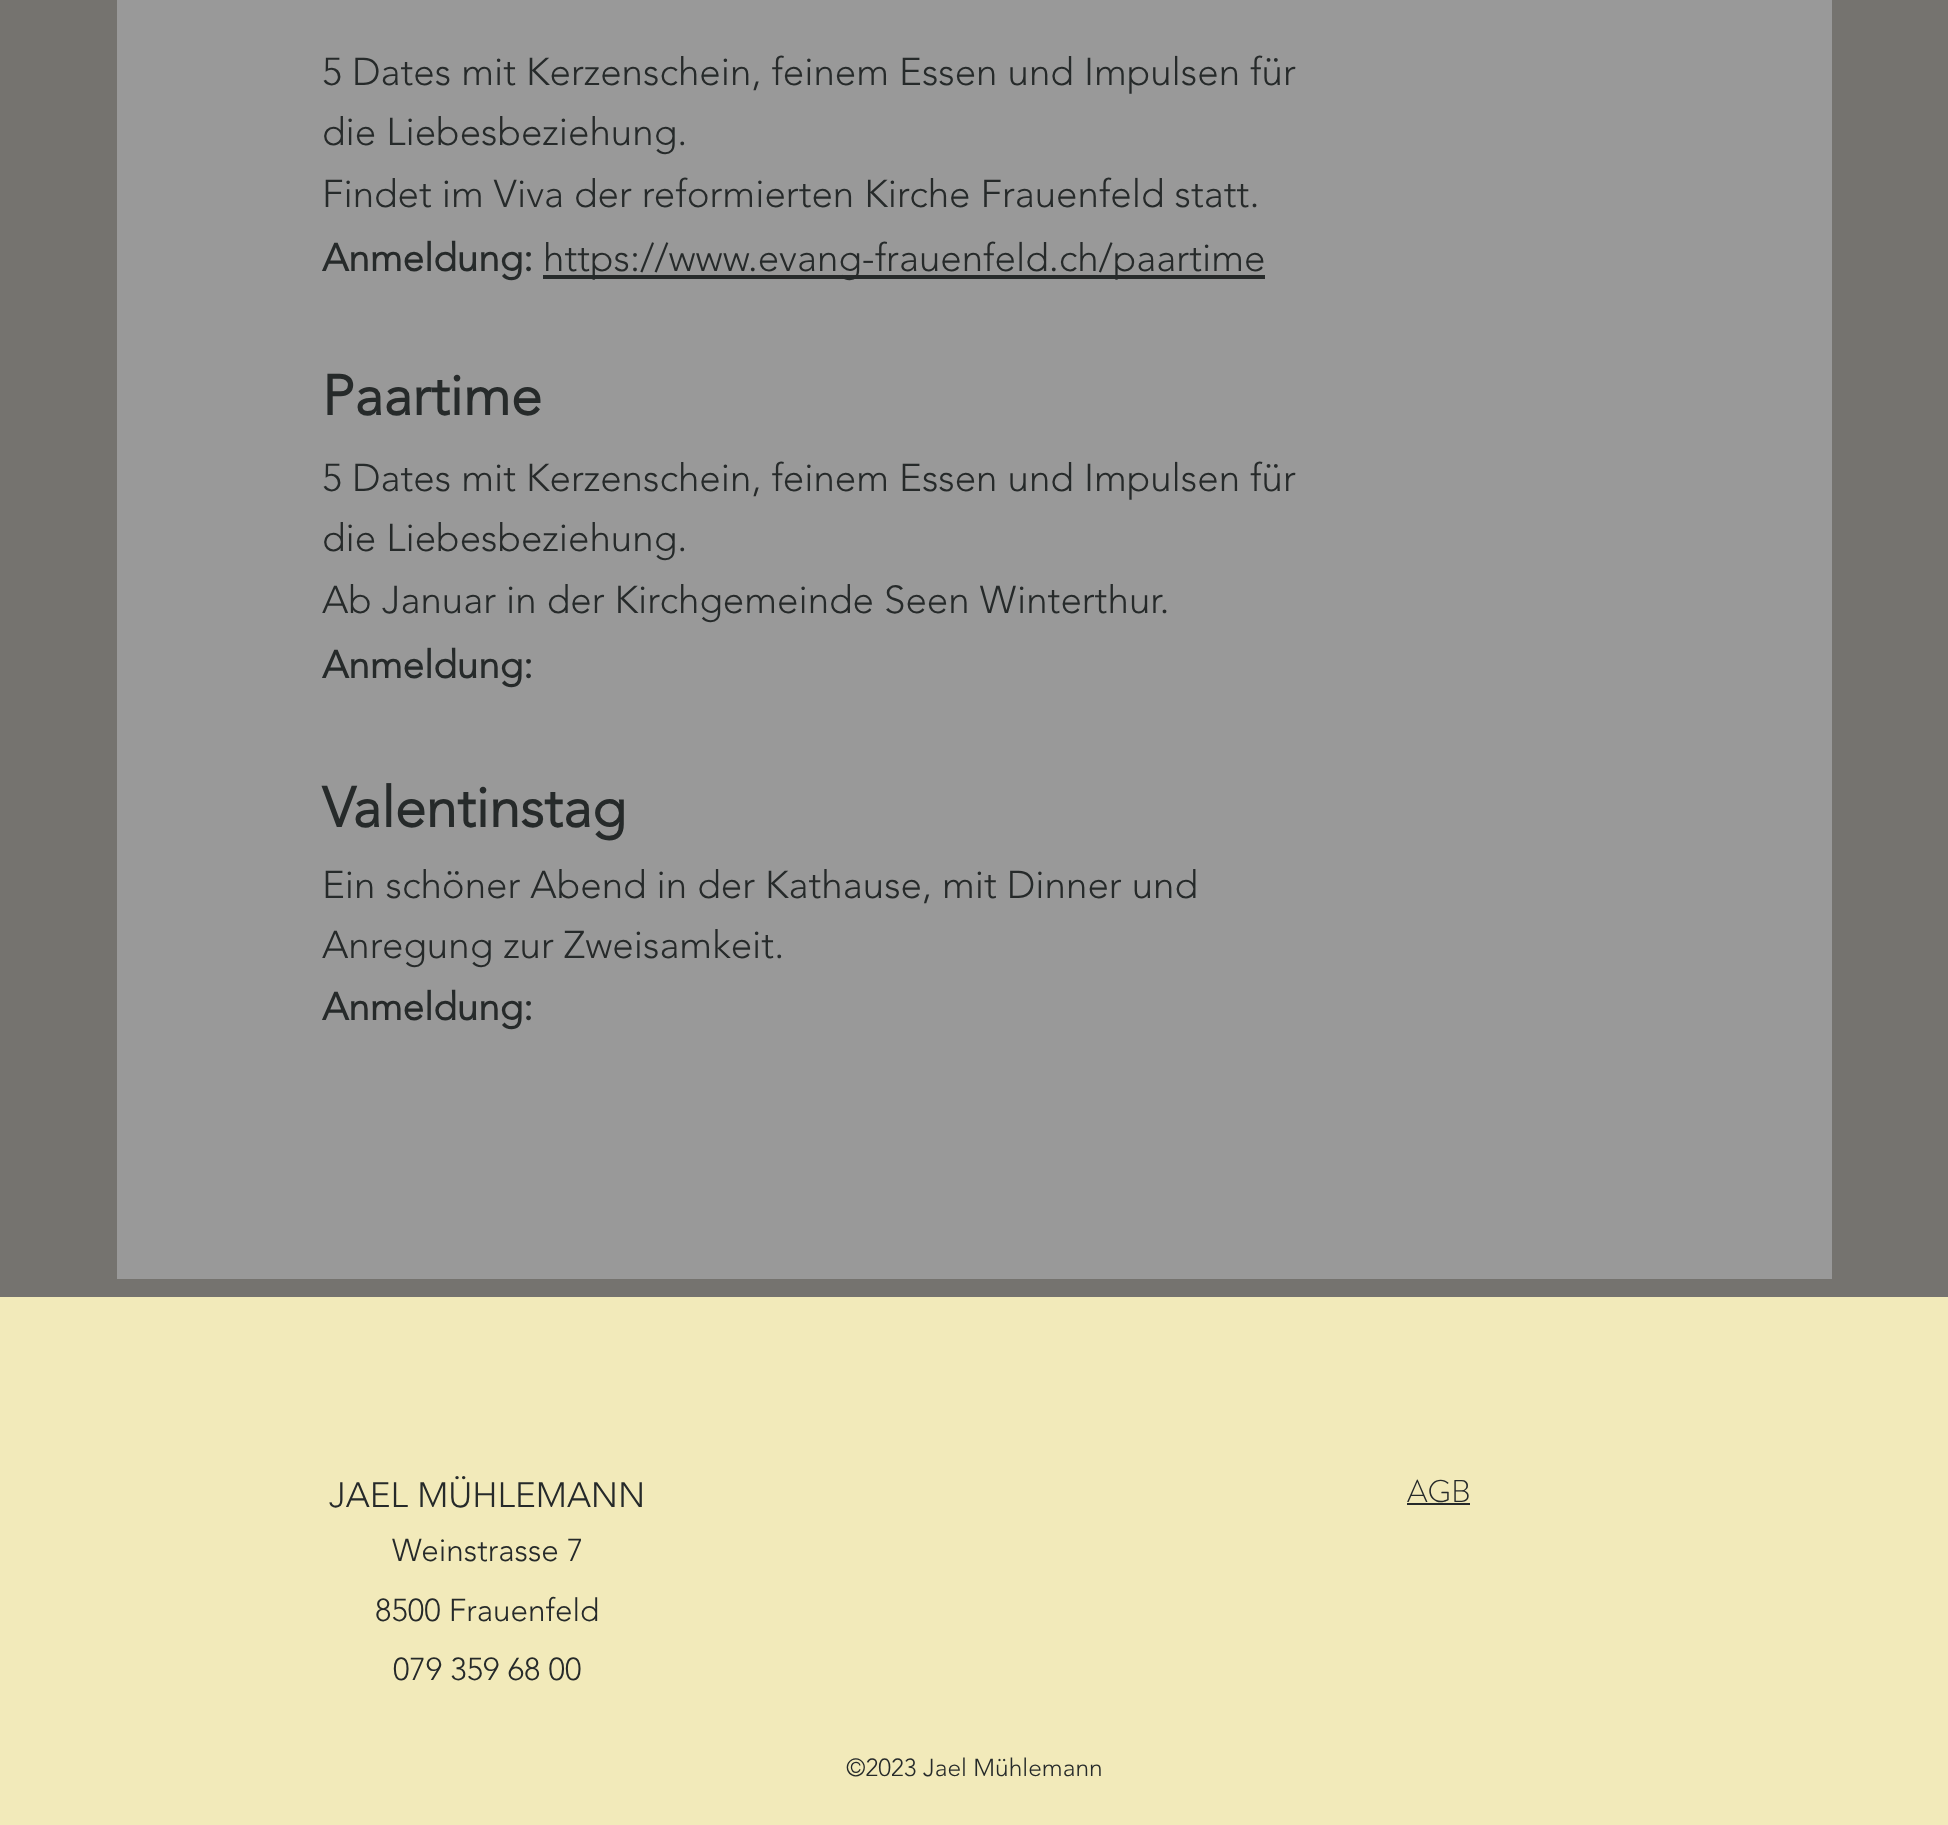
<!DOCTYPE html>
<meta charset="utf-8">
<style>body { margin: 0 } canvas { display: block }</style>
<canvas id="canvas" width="1948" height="1825"></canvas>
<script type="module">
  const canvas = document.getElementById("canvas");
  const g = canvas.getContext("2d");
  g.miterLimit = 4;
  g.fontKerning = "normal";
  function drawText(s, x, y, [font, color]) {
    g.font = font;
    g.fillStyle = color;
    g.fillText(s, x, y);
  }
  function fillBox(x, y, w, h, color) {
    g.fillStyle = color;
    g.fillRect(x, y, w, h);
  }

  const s1 = ["300 38.5px 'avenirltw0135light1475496'", "#262A2A"];
  const s2 = ["bold 38.5px 'avenirltw0135light1475496'", "#262A2A"];
  const s3 = ["bold 56px 'avenirltw0135light1475496'", "#262A2A"];
  const s4 = ["300 35px 'avenirltw0135light1475496'", "#262A2A"];
  const s5 = ["300 31.5px 'avenirltw0135light1475496'", "#262A2A"];
  const s6 = ["300 31.5px 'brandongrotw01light'", "#262A2A"];
  const s7 = ["300 24.5px 'avenirltw0135light1475496'", "#262A2A"];

  fillBox(0, 0, 1948, 1825, "#F2EABA");
  fillBox(0, 0, 1948, 1297, "#75736F");
  fillBox(117, 0, 1715, 1279, "#999999");
  drawText("5 Dates mit Kerzenschein, feinem Essen und Impulsen für", 322, 85, s1);
  drawText("die Liebesbeziehung.", 322, 145, s1);
  drawText("Findet im Viva der reformierten Kirche Frauenfeld statt.", 322, 207, s1);
  drawText("Anmeldung:", 322, 271, s2);
  fillBox(543, 275, 722, 4, "#262A2A");
  drawText("https://www.evang-frauenfeld.ch/paartime", 543, 271, s1);
  drawText("Paartime", 322, 415, s3);
  drawText("5 Dates mit Kerzenschein, feinem Essen und Impulsen für", 322, 491, s1);
  drawText("die Liebesbeziehung.", 322, 551, s1);
  drawText("Ab Januar in der Kirchgemeinde Seen Winterthur.", 322, 613, s1);
  drawText("Anmeldung:", 322, 678, s2);
  drawText("Valentinstag", 322, 827, s3);
  drawText("Ein schöner Abend in der Kathause, mit Dinner und", 322, 898, s1);
  drawText("Anregung zur Zweisamkeit.", 322, 958, s1);
  drawText("Anmeldung:", 322, 1020, s2);
  drawText("JAEL MÜHLEMANN", 329, 1507, s4);
  drawText("Weinstrasse 7", 392, 1561, s5);
  drawText("8500 Frauenfeld", 375, 1621, s5);
  drawText("079 359 68 00", 393, 1680, s5);
  drawText("AGB", 1407, 1502, s6);
  fillBox(1407, 1503, 63, 2, "#262A2A");
  drawText("©2023 Jael Mühlemann", 846, 1776, s7);
</script>
